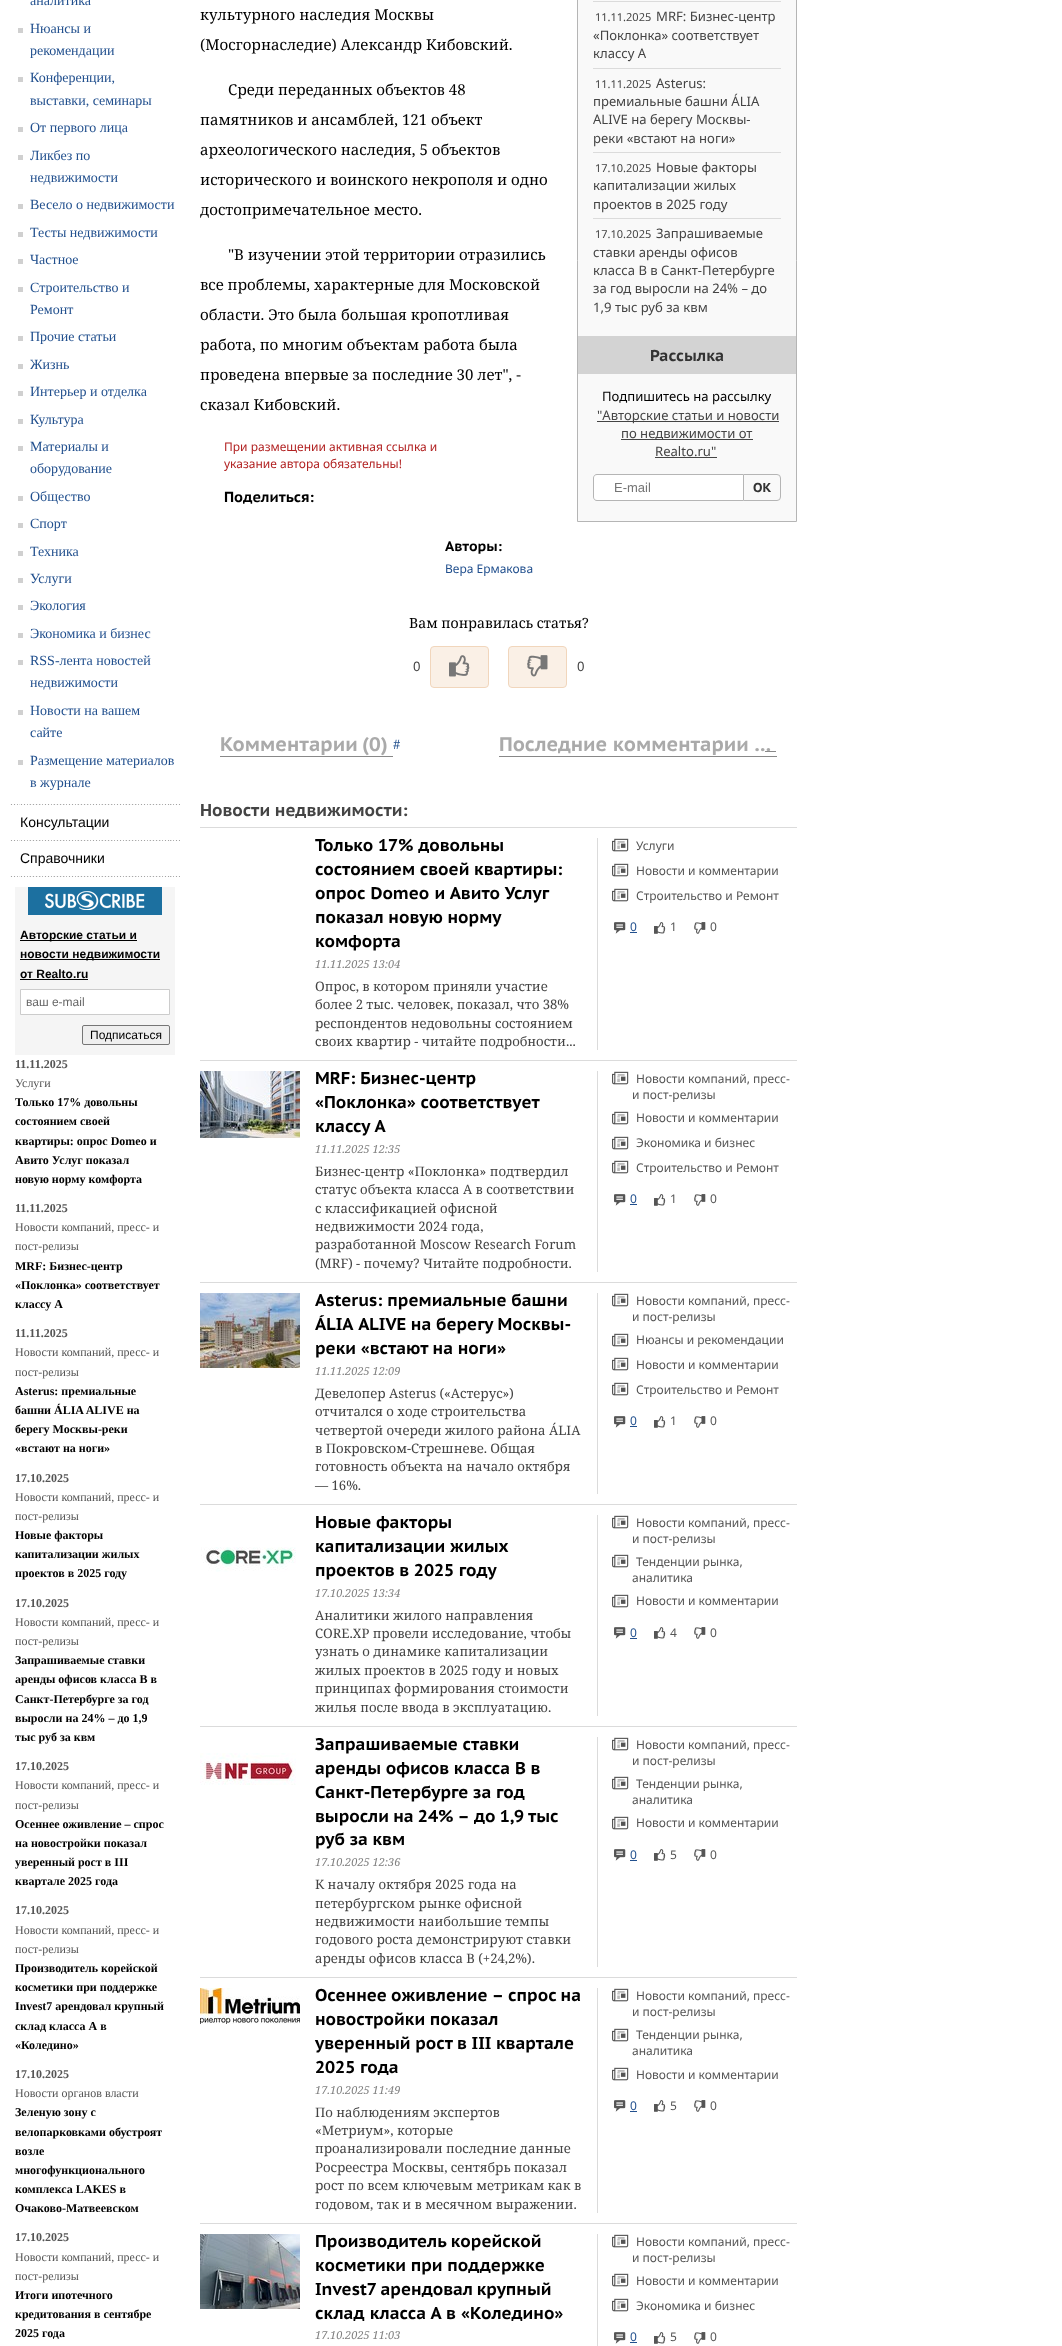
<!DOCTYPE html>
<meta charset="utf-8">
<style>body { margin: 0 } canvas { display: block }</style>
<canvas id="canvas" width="1062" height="2346"></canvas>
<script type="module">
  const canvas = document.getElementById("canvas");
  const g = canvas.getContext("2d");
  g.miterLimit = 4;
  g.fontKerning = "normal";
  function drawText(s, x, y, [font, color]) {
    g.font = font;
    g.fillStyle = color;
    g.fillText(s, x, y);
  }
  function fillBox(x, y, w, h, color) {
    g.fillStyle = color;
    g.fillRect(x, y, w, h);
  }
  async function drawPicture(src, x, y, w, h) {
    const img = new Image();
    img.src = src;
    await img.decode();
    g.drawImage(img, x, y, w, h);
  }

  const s1 = ["14px Liberation Serif", "#22508E"];
  const s2 = ["14px Liberation Sans", "#000000"];
  const s3 = ["bold 12px Liberation Sans", "#000000"];
  const s4 = ["12px Liberation Sans", "#666666"];
  const s5 = ["12px Liberation Sans", "#000000"];
  const s6 = ["bold 12px Liberation Serif", "#555555"];
  const s7 = ["12px Liberation Serif", "#555555"];
  const s8 = ["bold 12px Liberation Serif", "#000000"];
  const s9 = ["15px Noto Serif", "#000000"];
  const s10 = ["12px Noto Sans", "#B22222"];
  const s11 = ["bold 14.5px PT Sans Caption", "#000000"];
  const s12 = ["bold 14px PT Sans Caption", "#000000"];
  const s13 = ["12px Noto Sans", "#22508E"];
  const s14 = ["11px Noto Sans", "#444444"];
  const s15 = ["13.1px Noto Sans", "#444444"];
  const s16 = ["bold 15.75px PT Sans Caption", "#333333"];
  const s17 = ["13.1px Noto Sans", "#000000"];
  const s18 = ["13px Liberation Sans", "#757575"];
  const s19 = ["bold 13px PT Sans Caption", "#333333"];
  const s20 = ["14px Noto Serif", "#000000"];
  const s21 = ["bold 19.75px PT Sans Caption", "#AAAAAA"];
  const s22 = ["13.1px Noto Serif", "#22508E"];
  const s23 = ["bold 17px PT Sans Caption", "#444444"];
  const s24 = ["bold 17px PT Sans Caption", "#000000"];
  const s25 = ["italic 11px Noto Serif", "#808080"];
  const s26 = ["13.1px Noto Serif", "#444444"];
  const s27 = ["12px Noto Sans", "#555555"];

  fillBox(0, 0, 1062, 2346, "#FFFFFF");
  drawText("аналитика", 30, 5, s1);
  fillBox(18, 28, 5, 5, "#D0D0D0");
  drawText("Нюансы и", 30, 33, s1);
  drawText("рекомендации", 30, 55, s1);
  fillBox(18, 77, 5, 5, "#D0D0D0");
  drawText("Конференции,", 30, 82, s1);
  drawText("выставки, семинары", 30, 105, s1);
  fillBox(18, 127, 5, 5, "#D0D0D0");
  drawText("От первого лица", 30, 132, s1);
  fillBox(18, 155, 5, 5, "#D0D0D0");
  drawText("Ликбез по", 30, 160, s1);
  drawText("недвижимости", 30, 182, s1);
  fillBox(18, 204, 5, 5, "#D0D0D0");
  drawText("Весело о недвижимости", 30, 209, s1);
  fillBox(18, 232, 5, 5, "#D0D0D0");
  drawText("Тесты недвижимости", 30, 237, s1);
  fillBox(18, 259, 5, 5, "#D0D0D0");
  drawText("Частное", 30, 264, s1);
  fillBox(18, 287, 5, 5, "#D0D0D0");
  drawText("Строительство и", 30, 292, s1);
  drawText("Ремонт", 30, 314, s1);
  fillBox(18, 336, 5, 5, "#D0D0D0");
  drawText("Прочие статьи", 30, 341, s1);
  fillBox(18, 364, 5, 5, "#D0D0D0");
  drawText("Жизнь", 30, 369, s1);
  fillBox(18, 391, 5, 5, "#D0D0D0");
  drawText("Интерьер и отделка", 30, 396, s1);
  fillBox(18, 419, 5, 5, "#D0D0D0");
  drawText("Культура", 30, 424, s1);
  fillBox(18, 446, 5, 5, "#D0D0D0");
  drawText("Материалы и", 30, 451, s1);
  drawText("оборудование", 30, 473, s1);
  fillBox(18, 496, 5, 5, "#D0D0D0");
  drawText("Общество", 30, 501, s1);
  fillBox(18, 523, 5, 5, "#D0D0D0");
  drawText("Спорт", 30, 528, s1);
  fillBox(18, 551, 5, 5, "#D0D0D0");
  drawText("Техника", 30, 556, s1);
  fillBox(18, 578, 5, 5, "#D0D0D0");
  drawText("Услуги", 30, 583, s1);
  fillBox(18, 605, 5, 5, "#D0D0D0");
  drawText("Экология", 30, 610, s1);
  fillBox(18, 633, 5, 5, "#D0D0D0");
  drawText("Экономика и бизнес", 30, 638, s1);
  fillBox(18, 660, 5, 5, "#D0D0D0");
  drawText("RSS-лента новостей", 30, 665, s1);
  drawText("недвижимости", 30, 687, s1);
  fillBox(18, 710, 5, 5, "#D0D0D0");
  drawText("Новости на вашем", 30, 715, s1);
  drawText("сайте", 30, 737, s1);
  fillBox(18, 760, 5, 5, "#D0D0D0");
  drawText("Размещение материалов", 30, 765, s1);
  drawText("в журнале", 30, 787, s1);
  await drawPicture("pic1.png", 10, 804, 170, 1);
  drawText("Консультации", 20, 827, s2);
  await drawPicture("pic1.png", 10, 840, 170, 1);
  drawText("Справочники", 20, 863, s2);
  await drawPicture("pic1.png", 10, 876, 170, 1);
  fillBox(15, 887, 160, 168, "#F5F5F5");
  await drawPicture("pic2.png", 28, 887, 134, 28);
  fillBox(20, 940, 117, 1, "#000000");
  drawText("Авторские статьи и", 20, 939, s3);
  fillBox(20, 959, 140, 1, "#000000");
  drawText("новости недвижимости", 20, 958, s3);
  drawText("от Realto.ru", 20, 978, s3);
  fillBox(20, 979, 68, 1, "#000000");
  g.fillStyle = "#FFFFFF";
  g.beginPath();
  g.rect(20.5, 989.5, 149, 25);
  g.fill();
  g.strokeStyle = "#CCCCCC";
  g.stroke();
  drawText("ваш e-mail", 26, 1006, s4);
  g.fillStyle = "#EFEFEF";
  g.beginPath();
  g.roundRect(82.5, 1025.5, 87, 19, 1.5);
  g.fill();
  g.strokeStyle = "#767676";
  g.stroke();
  drawText("Подписаться", 90, 1039, s5);
  drawText("11.11.2025", 15, 1068, s6);
  drawText("Услуги", 15, 1087, s7);
  drawText("Только 17% довольны", 15, 1106, s8);
  drawText("состоянием своей", 15, 1125, s8);
  drawText("квартиры: опрос Domeo и", 15, 1145, s8);
  drawText("Авито Услуг показал", 15, 1164, s8);
  drawText("новую норму комфорта", 15, 1183, s8);
  drawText("11.11.2025", 15, 1212, s6);
  drawText("Новости компаний, пресс- и", 15, 1231, s7);
  drawText("пост-релизы", 15, 1250, s7);
  drawText("MRF: Бизнес-центр", 15, 1270, s8);
  drawText("«Поклонка» соответствует", 15, 1289, s8);
  drawText("классу А", 15, 1308, s8);
  drawText("11.11.2025", 15, 1337, s6);
  drawText("Новости компаний, пресс- и", 15, 1356, s7);
  drawText("пост-релизы", 15, 1376, s7);
  drawText("Asterus: премиальные", 15, 1395, s8);
  drawText("башни ÁLIA ALIVE на", 15, 1414, s8);
  drawText("берегу Москвы-реки", 15, 1433, s8);
  drawText("«встают на ноги»", 15, 1452, s8);
  drawText("17.10.2025", 15, 1482, s6);
  drawText("Новости компаний, пресс- и", 15, 1501, s7);
  drawText("пост-релизы", 15, 1520, s7);
  drawText("Новые факторы", 15, 1539, s8);
  drawText("капитализации жилых", 15, 1558, s8);
  drawText("проектов в 2025 году", 15, 1577, s8);
  drawText("17.10.2025", 15, 1607, s6);
  drawText("Новости компаний, пресс- и", 15, 1626, s7);
  drawText("пост-релизы", 15, 1645, s7);
  drawText("Запрашиваемые ставки", 15, 1664, s8);
  drawText("аренды офисов класса B в", 15, 1683, s8);
  drawText("Санкт-Петербурге за год", 15, 1703, s8);
  drawText("выросли на 24% – до 1,9", 15, 1722, s8);
  drawText("тыс руб за квм", 15, 1741, s8);
  drawText("17.10.2025", 15, 1770, s6);
  drawText("Новости компаний, пресс- и", 15, 1789, s7);
  drawText("пост-релизы", 15, 1809, s7);
  drawText("Осеннее оживление – спрос", 15, 1828, s8);
  drawText("на новостройки показал", 15, 1847, s8);
  drawText("уверенный рост в III", 15, 1866, s8);
  drawText("квартале 2025 года", 15, 1885, s8);
  drawText("17.10.2025", 15, 1914, s6);
  drawText("Новости компаний, пресс- и", 15, 1934, s7);
  drawText("пост-релизы", 15, 1953, s7);
  drawText("Производитель корейской", 15, 1972, s8);
  drawText("косметики при поддержке", 15, 1991, s8);
  drawText("Invest7 арендовал крупный", 15, 2010, s8);
  drawText("склад класса А в", 15, 2030, s8);
  drawText("«Коледино»", 15, 2049, s8);
  drawText("17.10.2025", 15, 2078, s6);
  drawText("Новости органов власти", 15, 2097, s7);
  drawText("Зеленую зону с", 15, 2116, s8);
  drawText("велопарковками обустроят", 15, 2136, s8);
  drawText("возле", 15, 2155, s8);
  drawText("многофункционального", 15, 2174, s8);
  drawText("комплекса LAKES в", 15, 2193, s8);
  drawText("Очаково-Матвеевском", 15, 2212, s8);
  drawText("17.10.2025", 15, 2241, s6);
  drawText("Новости компаний, пресс- и", 15, 2261, s7);
  drawText("пост-релизы", 15, 2280, s7);
  drawText("Итоги ипотечного", 15, 2299, s8);
  drawText("кредитования в сентябре", 15, 2318, s8);
  drawText("2025 года", 15, 2337, s8);
  drawText("культурного наследия Москвы", 200, 20, s9);
  drawText("(Мосгорнаследие) Александр Кибовский.", 200, 50, s9);
  drawText("Среди переданных объектов 48", 228, 95, s9);
  drawText("памятников и ансамблей, 121 объект", 200, 125, s9);
  drawText("археологического наследия, 5 объектов", 200, 155, s9);
  drawText("исторического и воинского некрополя и одно", 200, 185, s9);
  drawText("достопримечательное место.", 200, 215, s9);
  drawText("\"В изучении этой территории отразились", 228, 260, s9);
  drawText("все проблемы, характерные для Московской", 200, 290, s9);
  drawText("области. Это была большая кропотливая", 200, 320, s9);
  drawText("работа, по многим объектам работа была", 200, 350, s9);
  drawText("проведена впервые за последние 30 лет\", -", 200, 380, s9);
  drawText("сказал Кибовский.", 200, 410, s9);
  drawText("При размещении активная ссылка и", 224, 451, s10);
  drawText("указание автора обязательны!", 224, 468, s10);
  drawText("Поделиться:", 224, 502, s11);
  drawText("Авторы:", 445, 551, s12);
  drawText("Вера Ермакова", 445, 573, s13);
  g.fillStyle = "#F9F9F9";
  g.beginPath();
  g.rect(577.5, -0.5, 219, 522);
  g.fill();
  g.strokeStyle = "#B5B5B5";
  g.stroke();
  fillBox(593, 1, 188, 1, "#DBDBDB");
  drawText("11.11.2025", 595, 21, s14);
  drawText("MRF: Бизнес-центр", 656, 21, s15);
  drawText("«Поклонка» соответствует", 593, 40, s15);
  drawText("классу А", 593, 58, s15);
  fillBox(593, 68, 188, 1, "#DBDBDB");
  drawText("11.11.2025", 595, 88, s14);
  drawText("Asterus:", 656, 88, s15);
  drawText("премиальные башни ÁLIA", 593, 106, s15);
  drawText("ALIVE на берегу Москвы-", 593, 124, s15);
  drawText("реки «встают на ноги»", 593, 143, s15);
  fillBox(593, 152, 188, 1, "#DBDBDB");
  drawText("17.10.2025", 595, 172, s14);
  drawText("Новые факторы", 656, 172, s15);
  drawText("капитализации жилых", 593, 190, s15);
  drawText("проектов в 2025 году", 593, 209, s15);
  fillBox(593, 218, 188, 1, "#DBDBDB");
  drawText("17.10.2025", 595, 238, s14);
  drawText("Запрашиваемые", 656, 238, s15);
  drawText("ставки аренды офисов", 593, 257, s15);
  drawText("класса B в Санкт-Петербурге", 593, 275, s15);
  drawText("за год выросли на 24% – до", 593, 293, s15);
  drawText("1,9 тыс руб за квм", 593, 312, s15);
  fillBox(578, 336, 218, 38, "#D3D3D3");
  drawText("Рассылка", 650, 361, s16);
  drawText("Подпишитесь на рассылку", 602, 401, s17);
  fillBox(597, 421, 182, 1, "#444444");
  drawText("\"Авторские статьи и новости", 597, 420, s15);
  fillBox(621, 439, 132, 1, "#444444");
  drawText("по недвижимости от", 621, 438, s15);
  drawText("Realto.ru\"", 655, 456, s15);
  fillBox(655, 457, 62, 1, "#444444");
  g.fillStyle = "#FFFFFF";
  g.beginPath();
  g.roundRect(593, 474, 150, 27, [4, 0, 0, 4]);
  g.fill();
  g.fillStyle = "#B5B5B5";
  g.beginPath();
  g.moveTo(597, 474);
  g.lineTo(743, 474);
  g.lineTo(743, 501);
  g.lineTo(597, 501);
  g.bezierCurveTo(595, 501, 593, 499, 593, 497);
  g.lineTo(593, 478);
  g.bezierCurveTo(593, 476, 595, 474, 597, 474);
  g.closePath();
  g.moveTo(597, 475);
  g.lineTo(743, 475);
  g.lineTo(743, 500);
  g.lineTo(597, 500);
  g.bezierCurveTo(595, 500, 594, 499, 594, 497);
  g.lineTo(594, 478);
  g.bezierCurveTo(594, 476, 595, 475, 597, 475);
  g.closePath();
  g.fill("evenodd");
  drawText("E-mail", 614, 492, s18);
  g.beginPath();
  g.roundRect(743.5, 474.5, 37, 26, [0, 3.5, 3.5, 0]);
  g.stroke();
  drawText("ОК", 753, 492, s19);
  drawText("Вам понравилась статья?", 409, 628, s20);
  drawText("0", 413, 671, s15);
  g.fillStyle = "#FAF0E6";
  g.beginPath();
  g.roundRect(430.5, 646.5, 58, 41, 3.5);
  g.fill();
  g.strokeStyle = "#F1D6BC";
  g.stroke();
  await drawPicture("pic3.png", 449, 655, 21, 22);
  g.beginPath();
  g.roundRect(508.5, 646.5, 58, 41, 3.5);
  g.fill();
  g.stroke();
  await drawPicture("pic4.png", 527, 655, 21, 22);
  drawText("0", 577, 671, s15);
  drawText("Комментарии", 220, 751, s21);
  fillBox(220, 756, 173, 1, "#888888");
  drawText("(0)", 362, 751, s21);
  drawText("#", 393, 749, s22);
  fillBox(765, 751, 11, 1, "#888888");
  drawText("Последние комментарии …", 499, 751, s21);
  fillBox(499, 756, 278, 1, "#888888");
  drawText("Новости недвижимости:", 200, 816, s23);
  fillBox(200, 827, 597, 1, "#DBDBDB");
  drawText("Только 17% довольны", 315, 851, s24);
  drawText("состоянием своей квартиры:", 315, 875, s24);
  g.wordSpacing = "0.5px";
  drawText("опрос Domeo и Авито Услуг", 315, 899, s24);
  g.wordSpacing = "0px";
  drawText("показал новую норму", 315, 923, s24);
  drawText("комфорта", 315, 947, s24);
  drawText("11.11.2025 13:04", 315, 968, s25);
  drawText("Опрос, в котором приняли участие", 315, 991, s26);
  drawText("более 2 тыс. человек, показал, что 38%", 315, 1009, s26);
  drawText("респондентов недовольны состоянием", 315, 1028, s26);
  drawText("своих квартир - читайте подробности...", 315, 1046, s26);
  fillBox(597, 838, 1, 212, "#DBDBDB");
  await drawPicture("pic5.png", 612, 838, 17, 14);
  drawText("Услуги", 636, 850, s27);
  await drawPicture("pic5.png", 612, 863, 17, 14);
  drawText("Новости и комментарии", 636, 875, s27);
  await drawPicture("pic5.png", 612, 888, 17, 14);
  drawText("Строительство и Ремонт", 636, 900, s27);
  await drawPicture("pic6.png", 614, 922, 12, 12);
  drawText("0", 630, 931, s13);
  fillBox(630, 932, 7, 1, "#22508E");
  await drawPicture("pic7.png", 654, 922, 12, 12);
  drawText("1", 670, 931, s27);
  await drawPicture("pic8.png", 694, 922, 12, 12);
  drawText("0", 710, 931, s27);
  fillBox(200, 1060, 597, 1, "#DBDBDB");
  await drawPicture("pic9.png", 200, 1071, 100, 67);
  drawText("MRF: Бизнес-центр", 315, 1084, s24);
  drawText("«Поклонка» соответствует", 315, 1108, s24);
  g.wordSpacing = "1px";
  drawText("классу А", 315, 1132, s24);
  g.wordSpacing = "0px";
  drawText("11.11.2025 12:35", 315, 1153, s25);
  drawText("Бизнес-центр «Поклонка» подтвердил", 315, 1176, s26);
  drawText("статус объекта класса А в соответствии", 315, 1194, s26);
  drawText("с классификацией офисной", 315, 1213, s26);
  drawText("недвижимости 2024 года,", 315, 1231, s26);
  drawText("разработанной Moscow Research Forum", 315, 1249, s26);
  drawText("(MRF) - почему? Читайте подробности.", 315, 1268, s26);
  fillBox(597, 1071, 1, 201, "#DBDBDB");
  await drawPicture("pic5.png", 612, 1071, 17, 14);
  drawText("Новости компаний, пресс-", 636, 1083, s27);
  drawText("и пост-релизы", 632, 1099, s27);
  await drawPicture("pic5.png", 612, 1111, 17, 14);
  drawText("Новости и комментарии", 636, 1122, s27);
  await drawPicture("pic5.png", 612, 1136, 17, 14);
  drawText("Экономика и бизнес", 636, 1147, s27);
  await drawPicture("pic5.png", 612, 1160, 17, 14);
  drawText("Строительство и Ремонт", 636, 1172, s27);
  await drawPicture("pic6.png", 614, 1194, 12, 12);
  drawText("0", 630, 1203, s13);
  fillBox(630, 1204, 7, 1, "#22508E");
  await drawPicture("pic7.png", 654, 1194, 12, 12);
  drawText("1", 670, 1203, s27);
  await drawPicture("pic8.png", 694, 1194, 12, 12);
  drawText("0", 710, 1203, s27);
  fillBox(200, 1282, 597, 1, "#DBDBDB");
  await drawPicture("pic10.png", 200, 1293, 100, 75);
  drawText("Asterus: премиальные башни", 315, 1306, s24);
  drawText("ÁLIA ALIVE на берегу Москвы-", 315, 1330, s24);
  drawText("реки «встают на ноги»", 315, 1354, s24);
  drawText("11.11.2025 12:09", 315, 1375, s25);
  drawText("Девелопер Asterus («Астерус»)", 315, 1398, s26);
  drawText("отчитался о ходе строительства", 315, 1416, s26);
  drawText("четвертой очереди жилого района ÁLIA", 315, 1435, s26);
  drawText("в Покровском-Стрешневе. Общая", 315, 1453, s26);
  drawText("готовность объекта на начало октября", 315, 1471, s26);
  drawText("— 16%.", 315, 1490, s26);
  fillBox(597, 1293, 1, 201, "#DBDBDB");
  await drawPicture("pic5.png", 612, 1293, 17, 14);
  drawText("Новости компаний, пресс-", 636, 1305, s27);
  drawText("и пост-релизы", 632, 1321, s27);
  await drawPicture("pic5.png", 612, 1333, 17, 14);
  drawText("Нюансы и рекомендации", 636, 1344, s27);
  await drawPicture("pic5.png", 612, 1357, 17, 14);
  drawText("Новости и комментарии", 636, 1369, s27);
  await drawPicture("pic5.png", 612, 1382, 17, 14);
  drawText("Строительство и Ремонт", 636, 1394, s27);
  await drawPicture("pic6.png", 614, 1416, 12, 12);
  drawText("0", 630, 1425, s13);
  fillBox(630, 1426, 7, 1, "#22508E");
  await drawPicture("pic7.png", 654, 1416, 12, 12);
  drawText("1", 670, 1425, s27);
  await drawPicture("pic8.png", 694, 1416, 12, 12);
  drawText("0", 710, 1425, s27);
  fillBox(200, 1504, 597, 1, "#DBDBDB");
  await drawPicture("pic11.png", 201, 1547, 95, 25);
  drawText("Новые факторы", 315, 1528, s24);
  drawText("капитализации жилых", 315, 1552, s24);
  drawText("проектов в 2025 году", 315, 1576, s24);
  drawText("17.10.2025 13:34", 315, 1597, s25);
  drawText("Аналитики жилого направления", 315, 1620, s26);
  drawText("CORE.XP провели исследование, чтобы", 315, 1638, s26);
  drawText("узнать о динамике капитализации", 315, 1656, s26);
  drawText("жилых проектов в 2025 году и новых", 315, 1675, s26);
  drawText("принципах формирования стоимости", 315, 1693, s26);
  drawText("жилья после ввода в эксплуатацию.", 315, 1712, s26);
  fillBox(597, 1515, 1, 201, "#DBDBDB");
  await drawPicture("pic5.png", 612, 1515, 17, 14);
  drawText("Новости компаний, пресс-", 636, 1527, s27);
  drawText("и пост-релизы", 632, 1543, s27);
  await drawPicture("pic5.png", 612, 1554, 17, 14);
  drawText("Тенденции рынка,", 636, 1566, s27);
  drawText("аналитика", 632, 1582, s27);
  await drawPicture("pic5.png", 612, 1594, 17, 14);
  drawText("Новости и комментарии", 636, 1605, s27);
  await drawPicture("pic6.png", 614, 1627, 12, 12);
  drawText("0", 630, 1637, s13);
  fillBox(630, 1638, 7, 1, "#22508E");
  await drawPicture("pic7.png", 654, 1627, 12, 12);
  drawText("4", 670, 1637, s27);
  await drawPicture("pic8.png", 694, 1627, 12, 12);
  drawText("0", 710, 1637, s27);
  fillBox(200, 1726, 597, 1, "#DBDBDB");
  await drawPicture("pic12.png", 200, 1753, 96, 32);
  drawText("Запрашиваемые ставки", 315, 1750, s24);
  drawText("аренды офисов класса B в", 315, 1774, s24);
  drawText("Санкт-Петербурге за год", 315, 1798, s24);
  g.wordSpacing = "-0.5px";
  drawText("выросли на 24% – до 1,9 тыс", 315, 1822, s24);
  g.wordSpacing = "0px";
  drawText("руб за квм", 315, 1845, s24);
  drawText("17.10.2025 12:36", 315, 1866, s25);
  drawText("К началу октября 2025 года на", 315, 1889, s26);
  drawText("петербургском рынке офисной", 315, 1908, s26);
  drawText("недвижимости наибольшие темпы", 315, 1926, s26);
  drawText("годового роста демонстрируют ставки", 315, 1944, s26);
  drawText("аренды офисов класса B (+24,2%).", 315, 1963, s26);
  fillBox(597, 1737, 1, 230, "#DBDBDB");
  await drawPicture("pic5.png", 612, 1737, 17, 14);
  drawText("Новости компаний, пресс-", 636, 1749, s27);
  drawText("и пост-релизы", 632, 1765, s27);
  await drawPicture("pic5.png", 612, 1776, 17, 14);
  drawText("Тенденции рынка,", 636, 1788, s27);
  drawText("аналитика", 632, 1804, s27);
  await drawPicture("pic5.png", 612, 1816, 17, 14);
  drawText("Новости и комментарии", 636, 1827, s27);
  await drawPicture("pic6.png", 614, 1849, 12, 12);
  drawText("0", 630, 1859, s13);
  fillBox(630, 1860, 7, 1, "#22508E");
  await drawPicture("pic7.png", 654, 1849, 12, 12);
  drawText("5", 670, 1859, s27);
  await drawPicture("pic8.png", 694, 1849, 12, 12);
  drawText("0", 710, 1859, s27);
  fillBox(200, 1977, 597, 1, "#DBDBDB");
  await drawPicture("pic13.png", 200, 1988, 100, 36);
  g.wordSpacing = "-0.5px";
  drawText("Осеннее оживление – спрос на", 315, 2001, s24);
  g.wordSpacing = "0px";
  drawText("новостройки показал", 315, 2025, s24);
  drawText("уверенный рост в III квартале", 315, 2049, s24);
  drawText("2025 года", 315, 2073, s24);
  drawText("17.10.2025 11:49", 315, 2094, s25);
  drawText("По наблюдениям экспертов", 315, 2117, s26);
  drawText("«Метриум», которые", 315, 2135, s26);
  drawText("проанализировали последние данные", 315, 2153, s26);
  drawText("Росреестра Москвы, сентябрь показал", 315, 2172, s26);
  drawText("рост по всем ключевым метрикам как в", 315, 2190, s26);
  drawText("годовом, так и в месячном выражении.", 315, 2209, s26);
  fillBox(597, 1988, 1, 225, "#DBDBDB");
  await drawPicture("pic5.png", 612, 1988, 17, 14);
  drawText("Новости компаний, пресс-", 636, 2000, s27);
  drawText("и пост-релизы", 632, 2016, s27);
  await drawPicture("pic5.png", 612, 2028, 17, 14);
  drawText("Тенденции рынка,", 636, 2039, s27);
  drawText("аналитика", 632, 2055, s27);
  await drawPicture("pic5.png", 612, 2067, 17, 14);
  drawText("Новости и комментарии", 636, 2079, s27);
  await drawPicture("pic6.png", 614, 2100, 12, 12);
  drawText("0", 630, 2110, s13);
  fillBox(630, 2111, 7, 1, "#22508E");
  await drawPicture("pic7.png", 654, 2100, 12, 12);
  drawText("5", 670, 2110, s27);
  await drawPicture("pic8.png", 694, 2100, 12, 12);
  drawText("0", 710, 2110, s27);
  fillBox(200, 2223, 597, 1, "#DBDBDB");
  await drawPicture("pic14.png", 200, 2234, 100, 75);
  drawText("Производитель корейской", 315, 2247, s24);
  drawText("косметики при поддержке", 315, 2271, s24);
  g.wordSpacing = "-1px";
  drawText("Invest7 арендовал крупный", 315, 2295, s24);
  g.wordSpacing = "0.5px";
  drawText("склад класса А в «Коледино»", 315, 2319, s24);
  g.wordSpacing = "0px";
  drawText("17.10.2025 11:03", 315, 2339, s25);
  fillBox(597, 2234, 1, 112, "#DBDBDB");
  await drawPicture("pic5.png", 612, 2234, 17, 14);
  drawText("Новости компаний, пресс-", 636, 2246, s27);
  drawText("и пост-релизы", 632, 2262, s27);
  await drawPicture("pic5.png", 612, 2273, 17, 14);
  drawText("Новости и комментарии", 636, 2285, s27);
  await drawPicture("pic5.png", 612, 2298, 17, 14);
  drawText("Экономика и бизнес", 636, 2310, s27);
  await drawPicture("pic6.png", 614, 2332, 12, 12);
  drawText("0", 630, 2341, s13);
  fillBox(630, 2342, 7, 1, "#22508E");
  await drawPicture("pic7.png", 654, 2332, 12, 12);
  drawText("5", 670, 2341, s27);
  await drawPicture("pic8.png", 694, 2332, 12, 12);
  drawText("0", 710, 2341, s27);
</script>
